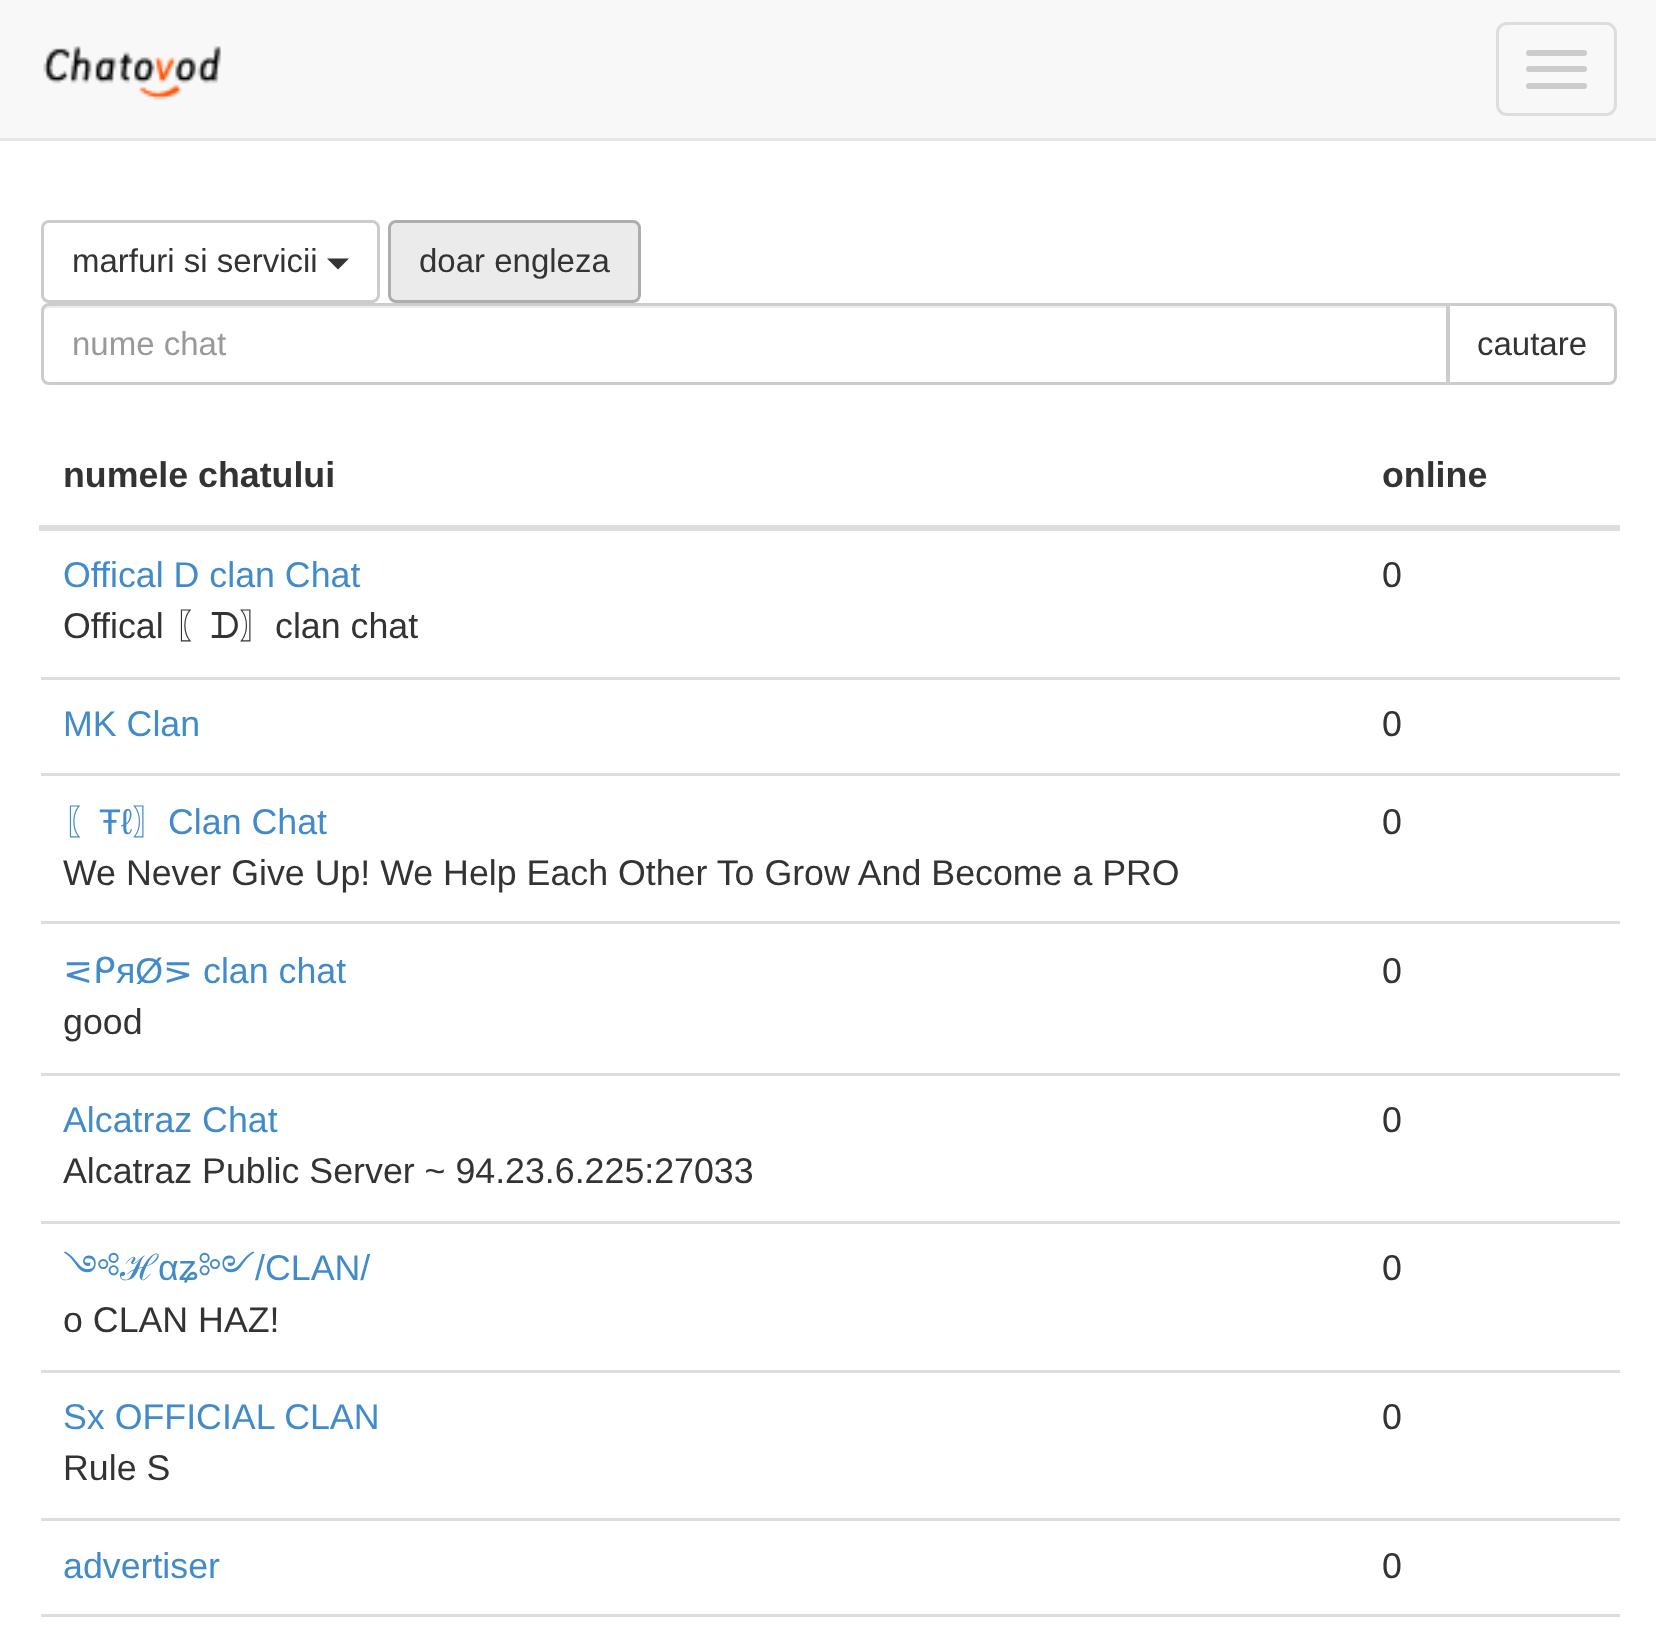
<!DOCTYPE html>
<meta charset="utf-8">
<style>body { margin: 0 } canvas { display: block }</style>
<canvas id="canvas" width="1656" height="1651"></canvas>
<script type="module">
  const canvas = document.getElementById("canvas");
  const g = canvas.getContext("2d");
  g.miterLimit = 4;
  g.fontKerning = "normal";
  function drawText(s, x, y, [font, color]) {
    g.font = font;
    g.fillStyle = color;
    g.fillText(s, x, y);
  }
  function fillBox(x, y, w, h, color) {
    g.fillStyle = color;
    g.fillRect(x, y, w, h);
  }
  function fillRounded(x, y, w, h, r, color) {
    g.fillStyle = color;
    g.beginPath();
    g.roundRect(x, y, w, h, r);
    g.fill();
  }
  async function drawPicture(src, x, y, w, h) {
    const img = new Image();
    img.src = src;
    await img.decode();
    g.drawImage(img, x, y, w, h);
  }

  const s1 = ["33px Liberation Sans", "#333333"];
  const s2 = ["33px Liberation Sans", "#999999"];
  const s3 = ["bold 35.75px Liberation Sans", "#333333"];
  const s4 = ["35.75px Liberation Sans", "#428BCA"];
  const s5 = ["35.75px Liberation Sans", "#333333"];
  const s6 = ["500 35.75px WenQuanYi Zen Hei", "#333333"];
  const s7 = ["35.75px FreeSans", "#333333"];
  const s8 = ["500 35.75px WenQuanYi Zen Hei", "#428BCA"];
  const s9 = ["35.75px DejaVu Sans", "#428BCA"];
  const s10 = ["35.75px Noto Serif Tibetan", "#428BCA"];
  const s11 = ["35.75px Noto Sans", "#428BCA"];

  fillBox(0, 0, 1656, 1651, "#FFFFFF");
  fillBox(0, 0, 1656, 138, "#F8F8F8");
  fillBox(0, 138, 1656, 3, "#E7E7E7");
  await drawPicture("pic1.png", 43, 46, 178, 54);
  g.beginPath();
  g.roundRect(1497.5, 23.5, 118, 91, 9.5);
  g.strokeStyle = "#DDDDDD";
  g.lineWidth = 3;
  g.stroke();
  fillRounded(1526, 50, 61, 6, 3, "#CCCCCC");
  fillRounded(1526, 66, 61, 6, 3, "#CCCCCC");
  fillRounded(1526, 83, 61, 6, 3, "#CCCCCC");
  g.beginPath();
  g.roundRect(42.5, 221.5, 336, 80, 6.5);
  g.strokeStyle = "#CCCCCC";
  g.stroke();
  drawText("marfuri si servicii", 72, 272, s1);
  g.beginPath();
  g.moveTo(327, 258.5);
  g.lineTo(349, 258.5);
  g.lineTo(338, 269.5);
  g.closePath();
  g.fill();
  g.fillStyle = "#EBEBEB";
  g.beginPath();
  g.roundRect(389.5, 221.5, 250, 80, 6.5);
  g.fill();
  g.strokeStyle = "#ADADAD";
  g.stroke();
  drawText("doar engleza", 419, 272, s1);
  g.fillStyle = "#ECECEC";
  g.beginPath();
  g.moveTo(50, 308);
  g.lineTo(1446, 308);
  g.lineTo(1446, 382);
  g.lineTo(1447, 382);
  g.lineTo(1447, 305);
  g.lineTo(50, 305);
  g.bezierCurveTo(47, 305, 44, 308, 44, 311);
  g.lineTo(44, 314);
  g.bezierCurveTo(44, 310, 46, 308, 50, 308);
  g.closePath();
  g.fill();
  g.beginPath();
  g.roundRect(42.5, 304.5, 1405, 79, [6.5, 0, 0, 6.5]);
  g.strokeStyle = "#CCCCCC";
  g.stroke();
  drawText("nume chat", 72, 355, s2);
  g.fillStyle = "#FFFFFF";
  g.beginPath();
  g.roundRect(1448.5, 304.5, 167, 79, [0, 6.5, 6.5, 0]);
  g.fill();
  g.stroke();
  drawText("cautare", 1477, 355, s1);
  drawText("numele chatului", 63, 487, s3);
  fillBox(39, 525, 1581, 6, "#DDDDDD");
  drawText("online", 1382, 487, s3);
  drawText("Offical D clan Chat", 63, 587, s4);
  drawText("Offical", 63, 638, s5);
  drawText("〖", 174, 638, s6);
  drawText("ᗪ", 210, 638, s7);
  drawText("〗", 239, 638, s6);
  drawText("clan chat", 275, 638, s5);
  drawText("0", 1382, 587, s5);
  drawText("MK Clan", 63, 736, s4);
  fillBox(41, 677, 1579, 3, "#DDDDDD");
  drawText("0", 1382, 736, s5);
  drawText("〖", 63, 834, s8);
  drawText("Ŧℓ", 99, 834, s4);
  drawText("〗", 132, 834, s8);
  drawText("Clan Chat", 168, 834, s4);
  drawText("We Never Give Up! We Help Each Other To Grow And Become a PRO", 63, 885, s5);
  fillBox(41, 773, 1579, 3, "#DDDDDD");
  drawText("0", 1382, 834, s5);
  drawText("⋜ᑭ", 63, 983, s9);
  drawText("яØ", 116, 983, s4);
  drawText("⋝", 163, 983, s9);
  drawText("clan chat", 203, 983, s4);
  drawText("good", 63, 1034, s5);
  fillBox(41, 921, 1579, 3, "#DDDDDD");
  drawText("0", 1382, 983, s5);
  drawText("Alcatraz Chat", 63, 1132, s4);
  drawText("Alcatraz Public Server ~ 94.23.6.225:27033", 63, 1183, s5);
  fillBox(41, 1073, 1579, 3, "#DDDDDD");
  drawText("0", 1382, 1132, s5);
  drawText("༺", 63, 1280, s10);
  drawText("ℋ", 120, 1280, s11);
  drawText("αʑ", 158, 1280, s4);
  drawText("༻", 198, 1280, s10);
  drawText("/CLAN/", 255, 1280, s4);
  drawText("o CLAN HAZ!", 63, 1332, s5);
  fillBox(41, 1221, 1579, 3, "#DDDDDD");
  drawText("0", 1382, 1280, s5);
  drawText("Sx OFFICIAL CLAN", 63, 1429, s4);
  drawText("Rule S", 63, 1480, s5);
  fillBox(41, 1370, 1579, 3, "#DDDDDD");
  drawText("0", 1382, 1429, s5);
  drawText("advertiser", 63, 1578, s4);
  fillBox(41, 1518, 1579, 3, "#DDDDDD");
  drawText("0", 1382, 1578, s5);
  fillBox(41, 1614, 1579, 3, "#DDDDDD");
</script>
